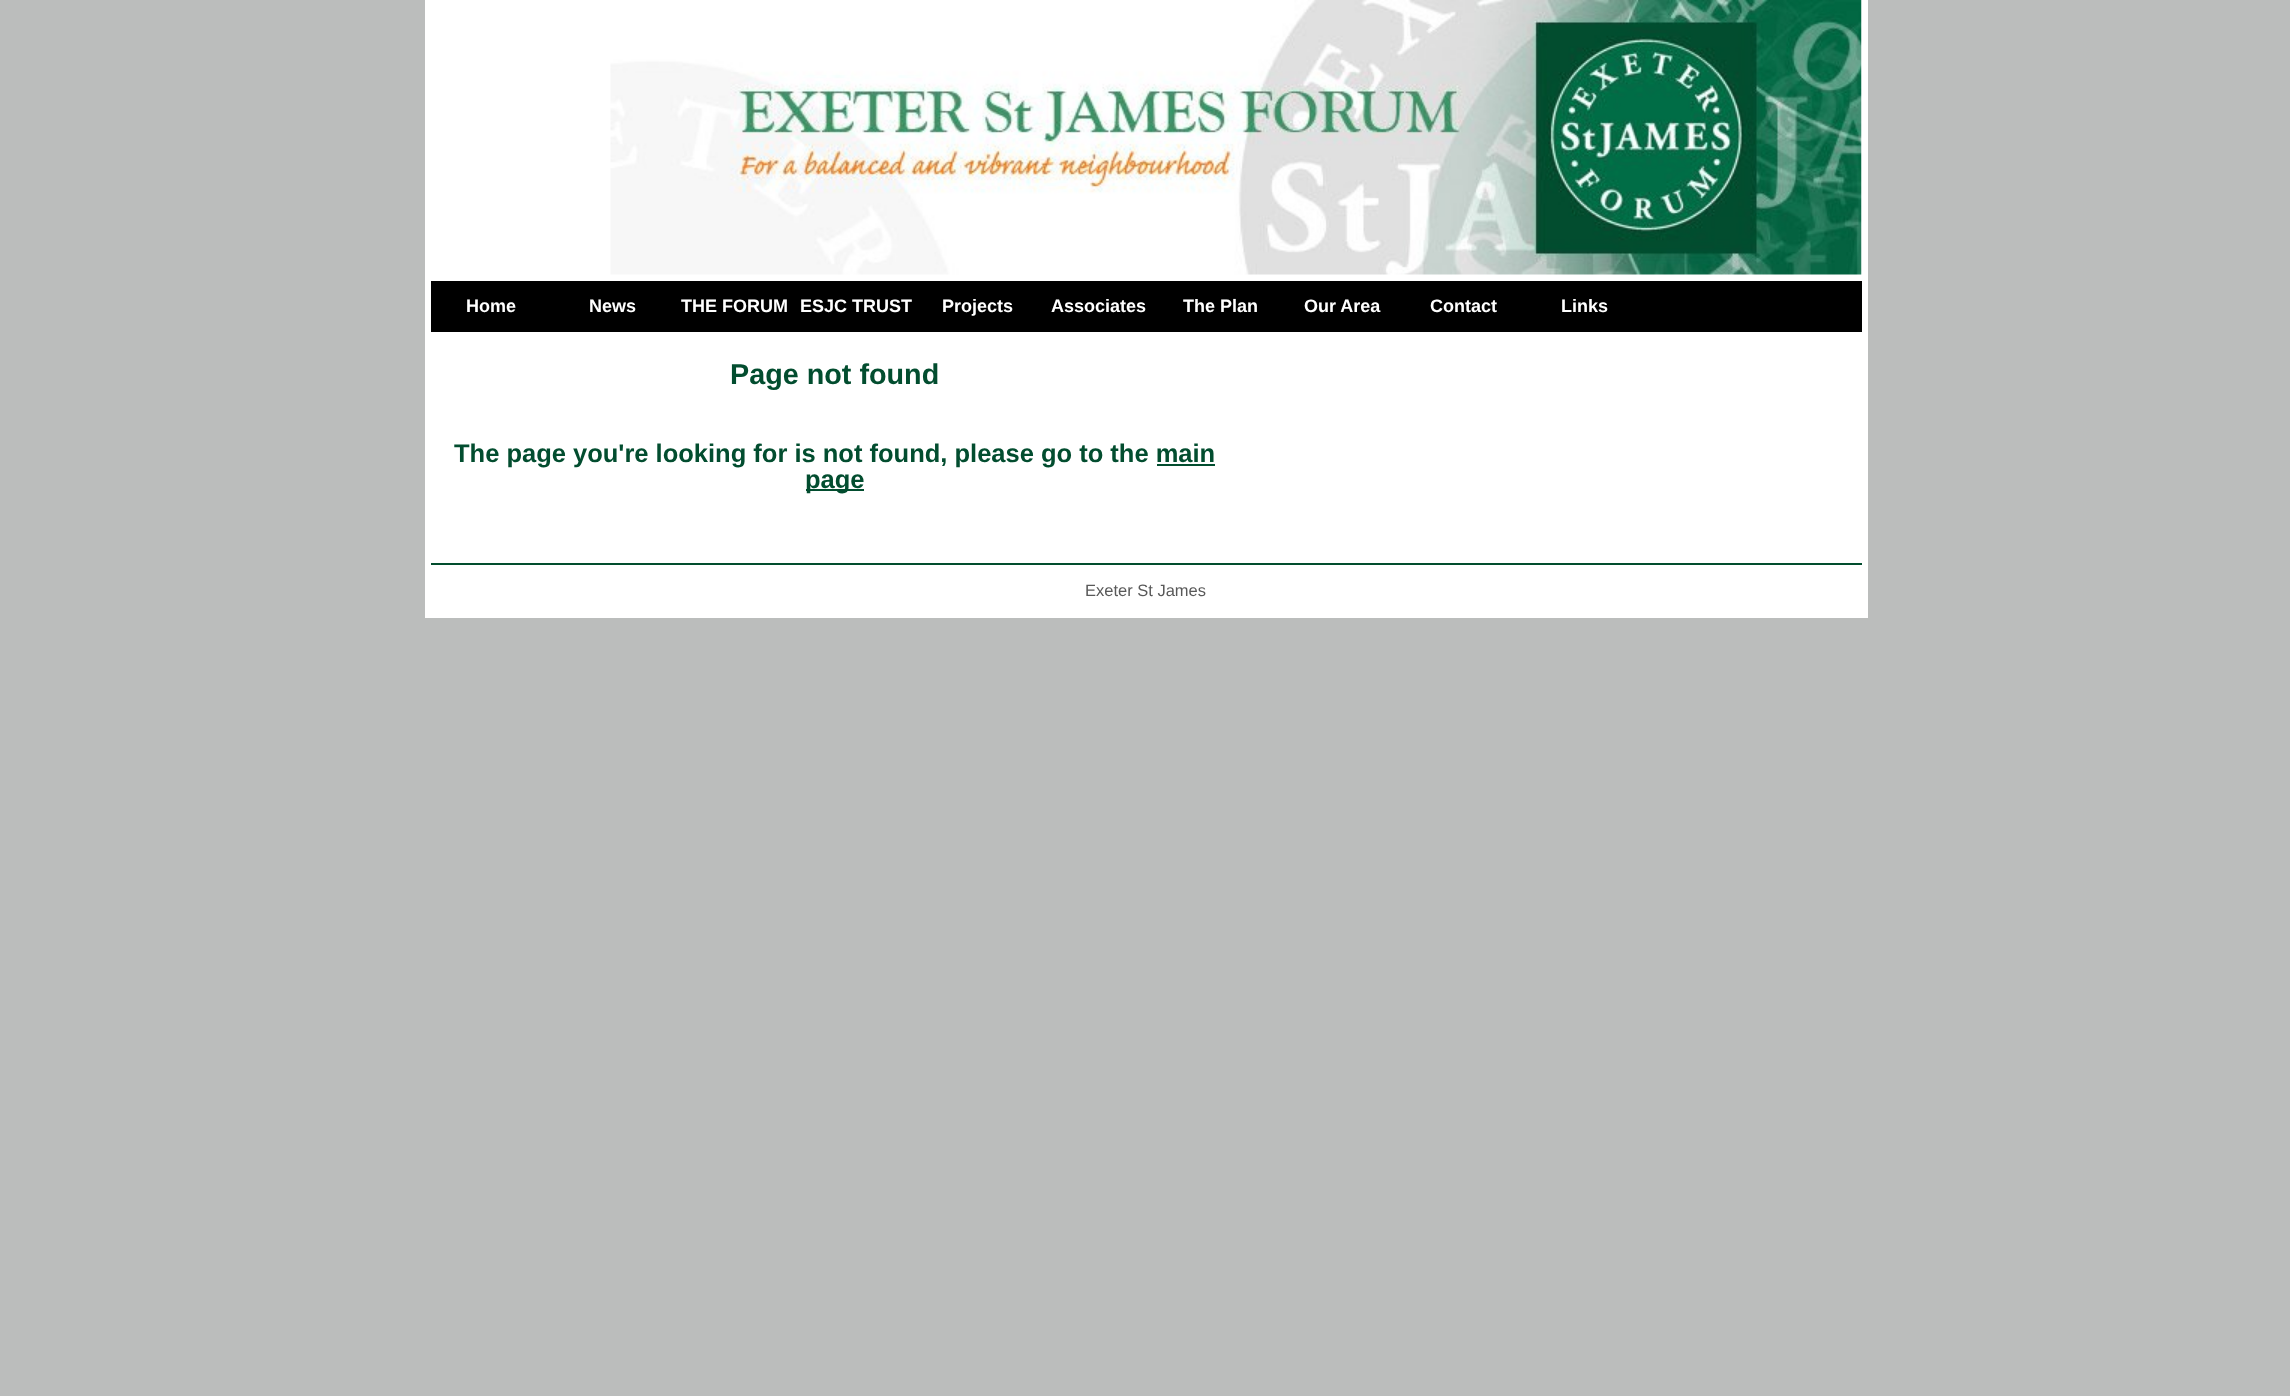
<!DOCTYPE html>
<meta charset="utf-8">
<style>body { margin: 0 } canvas { display: block }</style>
<canvas id="canvas" width="2290" height="1396"></canvas>
<script type="module">
  const canvas = document.getElementById("canvas");
  const g = canvas.getContext("2d");
  g.miterLimit = 4;
  g.fontKerning = "normal";
  function drawText(s, x, y, [font, color]) {
    g.font = font;
    g.fillStyle = color;
    g.fillText(s, x, y);
  }
  function fillBox(x, y, w, h, color) {
    g.fillStyle = color;
    g.fillRect(x, y, w, h);
  }
  async function drawPicture(src, x, y, w, h) {
    const img = new Image();
    img.src = src;
    await img.decode();
    g.drawImage(img, x, y, w, h);
  }

  const s1 = ["bold 18px Liberation Sans", "#FFFFFF"];
  const s2 = ["bold 28.75px Liberation Sans", "#024D2F"];
  const s3 = ["bold 25.5px Liberation Sans", "#024D2F"];
  const s4 = ["16.5px Liberation Sans", "#595959"];

  fillBox(0, 0, 2290, 1396, "#BBBDBC");
  fillBox(425, 0, 1443, 618, "#FFFFFF");
  await drawPicture("pic1.png", 610, 0, 1252, 275);
  fillBox(431, 281, 1431, 51, "#000000");
  drawText("Home", 466, 312, s1);
  drawText("News", 589, 312, s1);
  drawText("THE FORUM", 681, 312, s1);
  drawText("ESJC TRUST", 800, 312, s1);
  drawText("Projects", 942, 312, s1);
  drawText("Associates", 1051, 312, s1);
  drawText("The Plan", 1183, 312, s1);
  drawText("Our Area", 1304, 312, s1);
  drawText("Contact", 1430, 312, s1);
  drawText("Links", 1561, 312, s1);
  drawText("Page not found", 730, 384, s2);
  drawText("The page you're looking for is not found, please go to the main", 454, 462, s3);
  fillBox(806, 489, 58, 2, "#024D2F");
  drawText("page", 805, 488, s3);
  fillBox(1157, 464, 58, 2, "#024D2F");
  fillBox(431, 563, 1431, 2, "#024D2E");
  drawText("Exeter St James", 1085, 596, s4);
</script>
